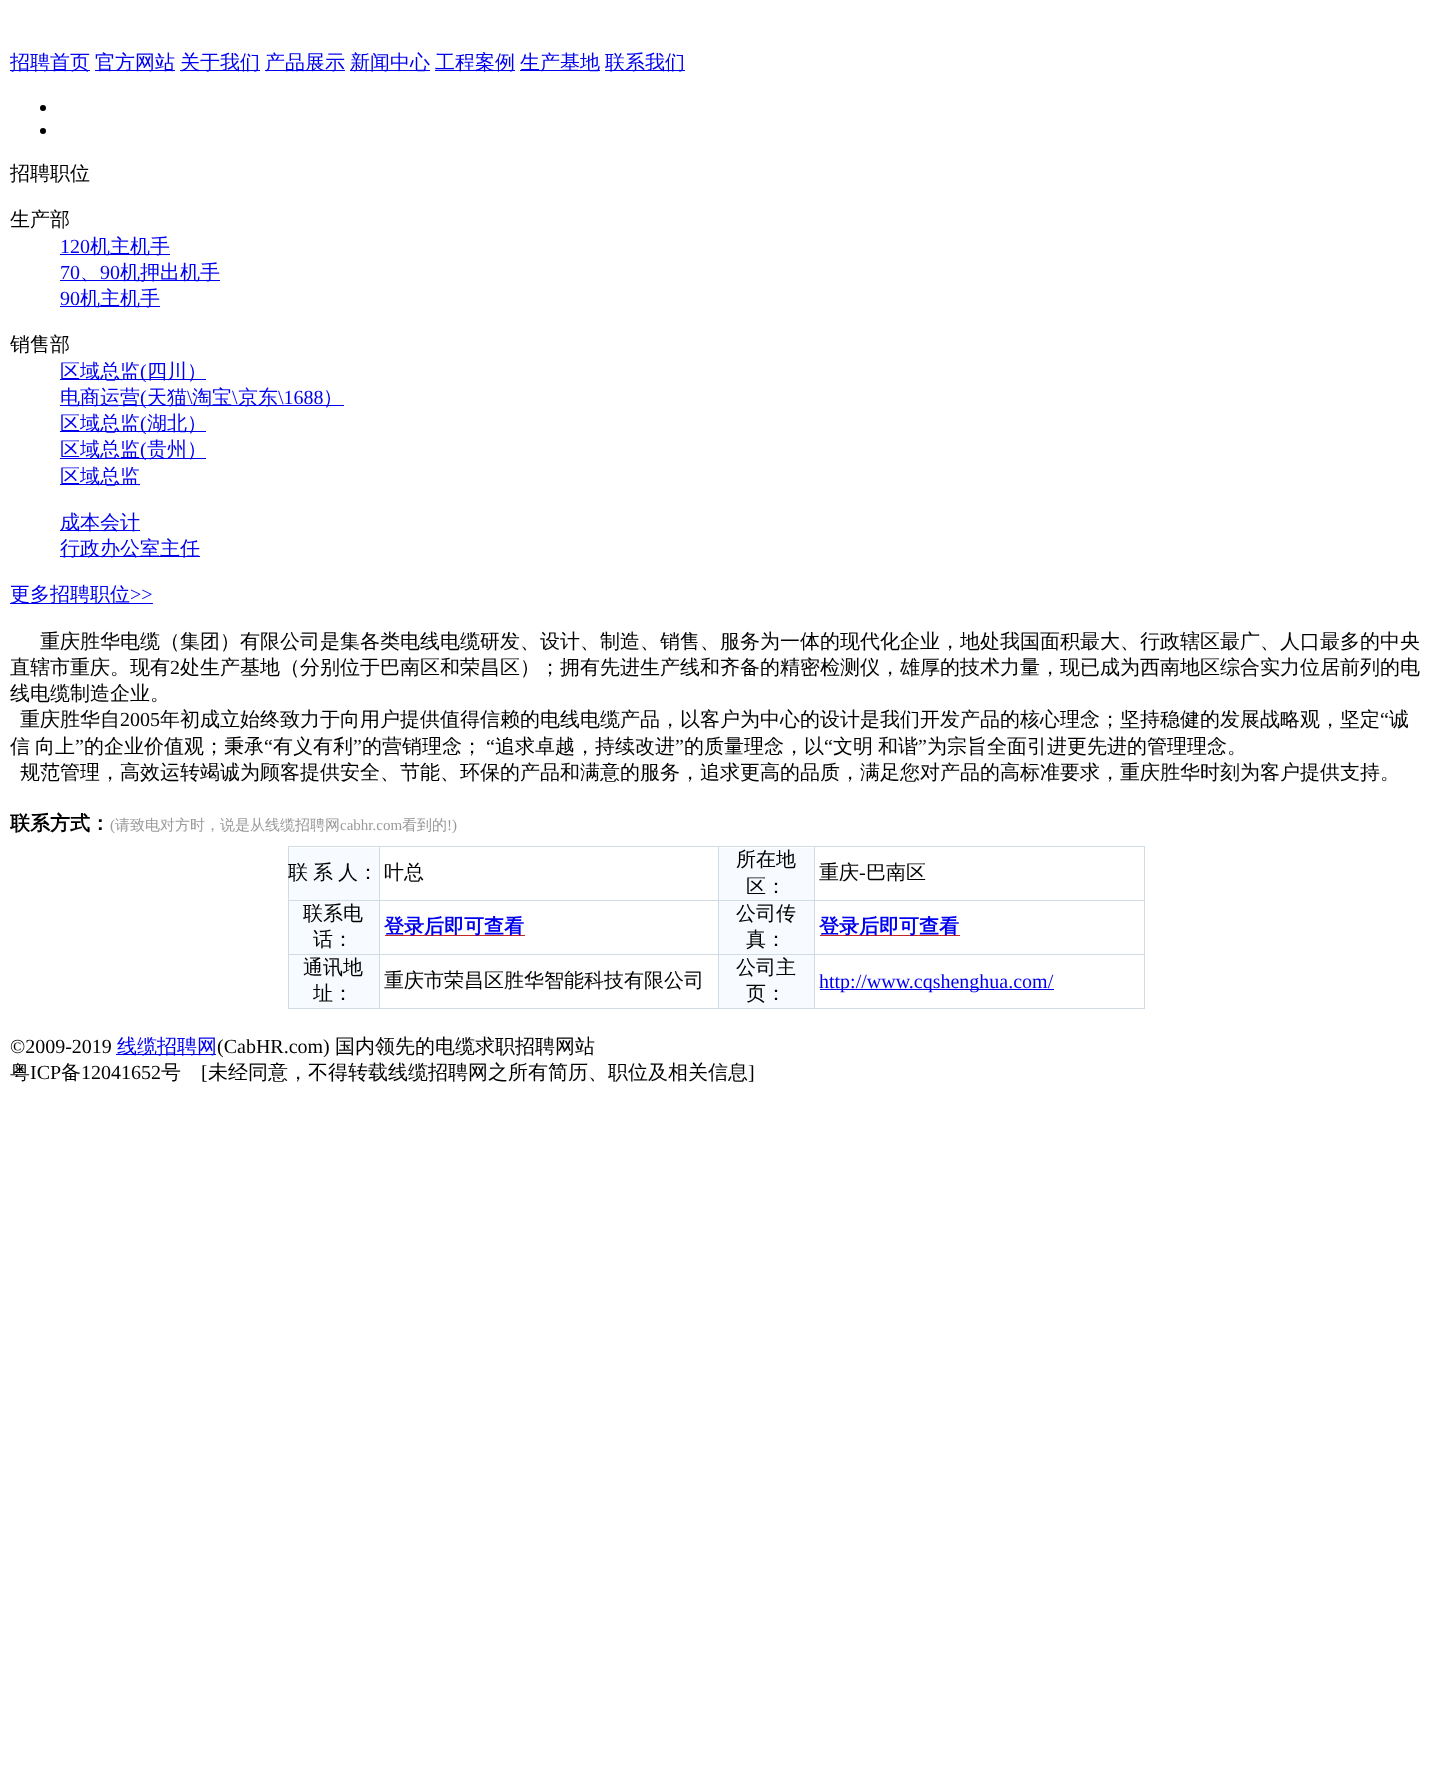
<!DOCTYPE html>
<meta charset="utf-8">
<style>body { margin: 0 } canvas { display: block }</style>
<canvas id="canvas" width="1431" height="1789"></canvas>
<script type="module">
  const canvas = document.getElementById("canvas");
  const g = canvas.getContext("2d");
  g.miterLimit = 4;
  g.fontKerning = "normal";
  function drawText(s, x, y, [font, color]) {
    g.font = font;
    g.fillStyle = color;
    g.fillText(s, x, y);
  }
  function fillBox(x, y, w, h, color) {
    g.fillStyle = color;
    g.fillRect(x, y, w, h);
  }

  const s1 = ["500 20px WenQuanYi Zen Hei", "#0000EE"];
  const s2 = ["500 20px WenQuanYi Zen Hei", "#000000"];
  const s3 = ["20px Liberation Serif", "#0000EE"];
  const s4 = ["20px Liberation Serif", "#000000"];
  const s5 = ["bold 20px WenQuanYi Zen Hei", "#000000"];
  const s6 = ["15px Liberation Serif", "#999999"];
  const s7 = ["500 15px WenQuanYi Zen Hei", "#999999"];
  const s8 = ["bold 20px WenQuanYi Zen Hei", "#0000EE"];

  fillBox(0, 0, 1431, 1789, "#FFFFFF");
  fillBox(10, 70, 80, 1, "#0000EE");
  drawText("招聘首页", 10, 69, s1);
  fillBox(95, 70, 80, 1, "#0000EE");
  drawText("官方网站", 95, 69, s1);
  fillBox(180, 70, 80, 1, "#0000EE");
  drawText("关于我们", 180, 69, s1);
  fillBox(265, 70, 80, 1, "#0000EE");
  drawText("产品展示", 265, 69, s1);
  fillBox(350, 70, 80, 1, "#0000EE");
  drawText("新闻中心", 350, 69, s1);
  fillBox(435, 70, 80, 1, "#0000EE");
  drawText("工程案例", 435, 69, s1);
  fillBox(520, 70, 80, 1, "#0000EE");
  drawText("生产基地", 520, 69, s1);
  fillBox(605, 70, 80, 1, "#0000EE");
  drawText("联系我们", 605, 69, s1);
  g.fillStyle = "#000000";
  g.beginPath();
  g.arc(43, 108, 3, 0, Math.PI * 2);
  g.fill();
  g.beginPath();
  g.arc(43, 131, 3, 0, Math.PI * 2);
  g.fill();
  drawText("招聘职位", 10, 180, s2);
  drawText("生产部", 10, 226, s2);
  drawText("120", 60, 253, s3);
  fillBox(60, 254, 110, 1, "#0000EE");
  drawText("机主机手", 90, 253, s1);
  drawText("70", 60, 279, s3);
  fillBox(60, 280, 160, 1, "#0000EE");
  drawText("、", 80, 279, s1);
  drawText("90", 100, 279, s3);
  drawText("机押出机手", 120, 279, s1);
  drawText("90", 60, 305, s3);
  fillBox(60, 306, 100, 1, "#0000EE");
  drawText("机主机手", 80, 305, s1);
  drawText("销售部", 10, 351, s2);
  fillBox(60, 379, 146, 1, "#0000EE");
  drawText("区域总监", 60, 378, s1);
  drawText("(", 140, 378, s3);
  drawText("四川）", 147, 378, s1);
  fillBox(60, 405, 284, 1, "#0000EE");
  drawText("电商运营", 60, 404, s1);
  drawText("(", 140, 404, s3);
  drawText("天猫", 147, 404, s1);
  drawText("\\", 187, 404, s3);
  drawText("淘宝", 192, 404, s1);
  drawText("\\", 232, 404, s3);
  drawText("京东", 238, 404, s1);
  drawText("\\1688", 278, 404, s3);
  drawText("）", 323, 404, s1);
  fillBox(60, 431, 146, 1, "#0000EE");
  drawText("区域总监", 60, 430, s1);
  drawText("(", 140, 430, s3);
  drawText("湖北）", 147, 430, s1);
  fillBox(60, 458, 146, 1, "#0000EE");
  drawText("区域总监", 60, 456, s1);
  drawText("(", 140, 456, s3);
  drawText("贵州）", 147, 456, s1);
  fillBox(60, 484, 80, 1, "#0000EE");
  drawText("区域总监", 60, 483, s1);
  fillBox(60, 530, 80, 1, "#0000EE");
  drawText("成本会计", 60, 529, s1);
  fillBox(60, 556, 140, 1, "#0000EE");
  drawText("行政办公室主任", 60, 555, s1);
  fillBox(10, 603, 143, 1, "#0000EE");
  drawText("更多招聘职位", 10, 601, s1);
  drawText(">>", 130, 601, s3);
  drawText("重庆胜华电缆（集团）有限公司是集各类电线电缆研发、设计、制造、销售、服务为一体的现代化企业，地处我国面积最大、行政辖区最广、人口最多的中央", 40, 648, s2);
  drawText("直辖市重庆。现有", 10, 674, s2);
  drawText("2", 170, 674, s4);
  drawText("处生产基地（分别位于巴南区和荣昌区）；拥有先进生产线和齐备的精密检测仪，雄厚的技术力量，现已成为西南地区综合实力位居前列的电", 180, 674, s2);
  drawText("线电缆制造企业。", 10, 700, s2);
  drawText("重庆胜华自", 20, 726, s2);
  drawText("2005", 120, 726, s4);
  drawText("年初成立始终致力于向用户提供值得信赖的电线电缆产品，以客户为中心的设计是我们开发产品的核心理念；坚持稳健的发展战略观，坚定", 160, 726, s2);
  drawText("“", 1380, 726, s4);
  drawText("诚", 1389, 726, s2);
  g.wordSpacing = "-1px";
  drawText("信 向上", 10, 753, s2);
  g.wordSpacing = "0px";
  drawText("”", 75, 753, s4);
  drawText("的企业价值观；秉承", 84, 753, s2);
  drawText("“", 264, 753, s4);
  drawText("有义有利", 273, 753, s2);
  drawText("”", 353, 753, s4);
  drawText("的营销理念；", 362, 753, s2);
  drawText("“", 486, 753, s4);
  drawText("追求卓越，持续改进", 495, 753, s2);
  drawText("”", 675, 753, s4);
  drawText("的质量理念，以", 684, 753, s2);
  drawText("“", 824, 753, s4);
  g.wordSpacing = "-1px";
  drawText("文明 和谐", 833, 753, s2);
  g.wordSpacing = "0px";
  drawText("”", 918, 753, s4);
  drawText("为宗旨全面引进更先进的管理理念。", 927, 753, s2);
  drawText("规范管理，高效运转竭诚为顾客提供安全、节能、环保的产品和满意的服务，追求更高的品质，满足您对产品的高标准要求，重庆胜华时刻为客户提供支持。", 20, 779, s2);
  drawText("联系方式：", 10, 830, s5);
  drawText("(", 110, 830, s6);
  drawText("请致电对方时，说是从线缆招聘网", 115, 830, s7);
  drawText("cabhr.com", 340, 830, s6);
  drawText("看到的", 402, 830, s7);
  drawText("!)", 447, 830, s6);
  fillBox(288, 846, 857, 1, "#D0DBE3");
  fillBox(1144, 846, 1, 163, "#D0DBE3");
  fillBox(288, 1008, 857, 1, "#D0DBE3");
  fillBox(288, 846, 1, 163, "#D0DBE3");
  fillBox(814, 900, 331, 1, "#D0DBE3");
  fillBox(814, 954, 331, 1, "#D0DBE3");
  fillBox(814, 954, 1, 55, "#D0DBE3");
  fillBox(718, 954, 97, 1, "#D0DBE3");
  fillBox(814, 900, 1, 55, "#D0DBE3");
  fillBox(718, 900, 97, 1, "#D0DBE3");
  fillBox(718, 954, 1, 55, "#D0DBE3");
  fillBox(379, 954, 340, 1, "#D0DBE3");
  fillBox(718, 900, 1, 55, "#D0DBE3");
  fillBox(379, 900, 340, 1, "#D0DBE3");
  fillBox(379, 954, 1, 55, "#D0DBE3");
  fillBox(288, 954, 92, 1, "#D0DBE3");
  fillBox(379, 900, 1, 55, "#D0DBE3");
  fillBox(288, 900, 92, 1, "#D0DBE3");
  fillBox(379, 846, 1, 55, "#D0DBE3");
  fillBox(719, 848, 95, 52, "#F7FAFE");
  fillBox(718, 846, 1, 55, "#D0DBE3");
  drawText("所在地", 736, 866, s2);
  drawText("区：", 746, 893, s2);
  fillBox(289, 848, 90, 52, "#F7FAFE");
  drawText("联", 288, 879, s2);
  drawText("系", 313, 879, s2);
  drawText("人： 叶总", 338, 879, s2);
  fillBox(814, 846, 1, 55, "#D0DBE3");
  drawText("重庆", 819, 879, s2);
  drawText("-", 859, 879, s4);
  drawText("巴南区", 866, 879, s2);
  fillBox(289, 901, 90, 53, "#F7FAFE");
  drawText("联系电", 303, 920, s2);
  drawText("话：", 313, 946, s2);
  fillBox(385, 935, 140, 1, "#C52424");
  drawText("登录后即可查看", 384, 933, s8);
  fillBox(719, 901, 95, 53, "#F7FAFE");
  drawText("公司传", 736, 920, s2);
  drawText("真：", 746, 946, s2);
  fillBox(820, 935, 140, 1, "#C52424");
  drawText("登录后即可查看", 819, 933, s8);
  fillBox(289, 955, 90, 53, "#F7FAFE");
  drawText("通讯地", 303, 974, s2);
  drawText("址：", 313, 1000, s2);
  drawText("重庆市荣昌区胜华智能科技有限公司", 384, 987, s2);
  fillBox(719, 955, 95, 53, "#F7FAFE");
  drawText("公司主", 736, 974, s2);
  drawText("页：", 746, 1000, s2);
  fillBox(820, 989, 234, 1, "#0000EE");
  drawText("http://www.cqshenghua.com/", 819, 988, s3);
  drawText("©2009-2019", 10, 1053, s4);
  fillBox(116, 1054, 100, 1, "#0000EE");
  drawText("线缆招聘网", 117, 1053, s1);
  drawText("(CabHR.com)", 217, 1053, s4);
  drawText("国内领先的电缆求职招聘网站", 335, 1053, s2);
  drawText("粤", 10, 1079, s2);
  drawText("ICP", 30, 1079, s4);
  drawText("备", 61, 1079, s2);
  drawText("12041652", 81, 1079, s4);
  drawText("号", 161, 1079, s2);
  drawText("[", 201, 1079, s4);
  drawText("未经同意，不得转载线缆招聘网之所有简历、职位及相关信息", 208, 1079, s2);
  drawText("]", 748, 1079, s4);
</script>
